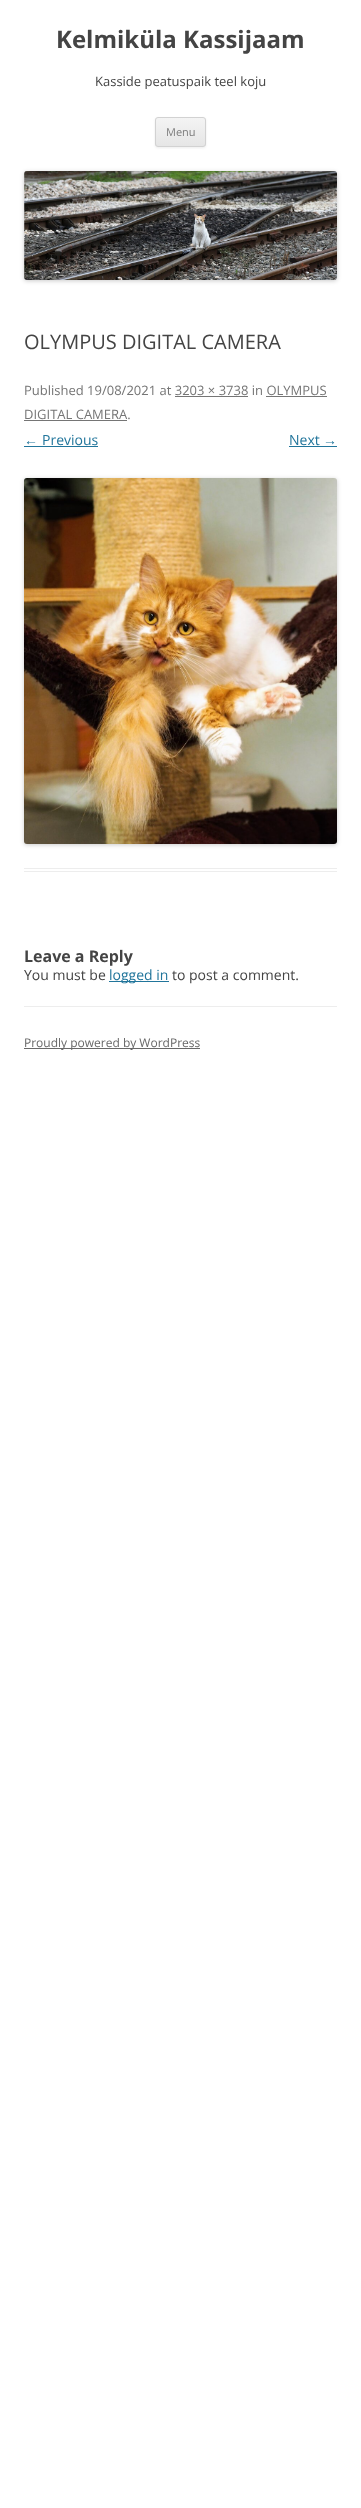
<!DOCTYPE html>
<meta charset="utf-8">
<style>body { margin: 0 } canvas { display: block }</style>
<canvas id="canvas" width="361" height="2508"></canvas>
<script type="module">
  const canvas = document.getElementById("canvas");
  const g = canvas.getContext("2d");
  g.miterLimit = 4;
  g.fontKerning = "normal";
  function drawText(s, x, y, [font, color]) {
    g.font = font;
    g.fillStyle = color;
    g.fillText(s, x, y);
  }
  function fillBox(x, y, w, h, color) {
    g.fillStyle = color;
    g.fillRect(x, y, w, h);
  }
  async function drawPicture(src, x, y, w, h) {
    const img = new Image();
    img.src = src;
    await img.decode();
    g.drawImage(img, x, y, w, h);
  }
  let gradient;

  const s1 = ["bold 24px Open Sans", "#444444"];
  const s2 = ["13px Open Sans", "#444444"];
  const s3 = ["11px Open Sans", "#7C7C7C"];
  const s4 = ["20px Open Sans", "#444444"];
  const s5 = ["13px Open Sans", "#757575"];
  const s6 = ["14px Liberation Sans", "#21759B"];
  const s7 = ["14px Open Sans", "#21759B"];
  const s8 = ["bold 16px Open Sans", "#444444"];
  const s9 = ["14px Open Sans", "#444444"];
  const s10 = ["12px Open Sans", "#686868"];

  fillBox(0, 0, 361, 2508, "#FFFFFF");
  drawText("Kelmiküla Kassijaam", 56, 48, s1);
  drawText("Kasside peatuspaik teel koju", 95, 86, s2);
  g.fillStyle = "rgba(64, 64, 64, 0.1)";
  g.filter = "blur(1px)";
  g.beginPath();
  g.roundRect(155, 118, 51, 30, 3);
  g.fill();
  g.filter = "none";
  g.save();
  g.beginPath();
  g.roundRect(155, 117, 51, 30, 3);
  g.clip();
  gradient = g.createLinearGradient(181, 118, 181, 146);
  gradient.addColorStop(0, "#F4F4F4");
  gradient.addColorStop(1, "#E6E6E6");
  g.fillStyle = gradient;
  g.fillRect(155, 118, 51, 28);
  g.restore();
  g.beginPath();
  g.roundRect(155.5, 117.5, 50, 29, 2.5);
  g.strokeStyle = "#D2D2D2";
  g.stroke();
  drawText("Menu", 166, 136, s3);
  g.fillStyle = "rgba(0, 0, 0, 0.2)";
  g.filter = "blur(2px)";
  g.beginPath();
  g.roundRect(24, 172, 313, 109, 3);
  g.fill();
  g.filter = "none";
  await drawPicture("pic1.png", 24, 171, 313, 109);
  fillBox(24, 868, 313, 1, "#EDEDED");
  fillBox(24, 871, 313, 1, "#EDEDED");
  drawText("OLYMPUS DIGITAL CAMERA", 24, 349, s4);
  drawText("Published 19/08/2021 at 3203 × 3738 in OLYMPUS", 24, 395, s5);
  fillBox(175, 396, 73, 1, "#757575");
  drawText("DIGITAL CAMERA.", 24, 419, s5);
  fillBox(266, 396, 61, 1, "#757575");
  fillBox(24, 420, 103, 1, "#757575");
  drawText("←", 24, 445, s6);
  fillBox(24, 446, 74, 1, "#21759B");
  drawText("Previous", 42, 445, s7);
  drawText("Next", 289, 445, s7);
  drawText("→", 323, 445, s6);
  fillBox(289, 446, 48, 1, "#21759B");
  g.fillStyle = "rgba(0, 0, 0, 0.2)";
  g.filter = "blur(2px)";
  g.beginPath();
  g.roundRect(24, 479, 313, 366, 3);
  g.fill();
  g.filter = "none";
  await drawPicture("pic2.png", 24, 478, 313, 366);
  drawText("Leave a Reply", 24, 962, s8);
  drawText("You must be", 24, 980, s9);
  fillBox(109, 981, 60, 1, "#21759B");
  drawText("logged in", 109, 980, s7);
  drawText("to post a comment.", 172, 980, s9);
  fillBox(24, 1006, 313, 1, "#EDEDED");
  fillBox(24, 1048, 176, 1, "#686868");
  drawText("Proudly powered by WordPress", 24, 1047, s10);
</script>
